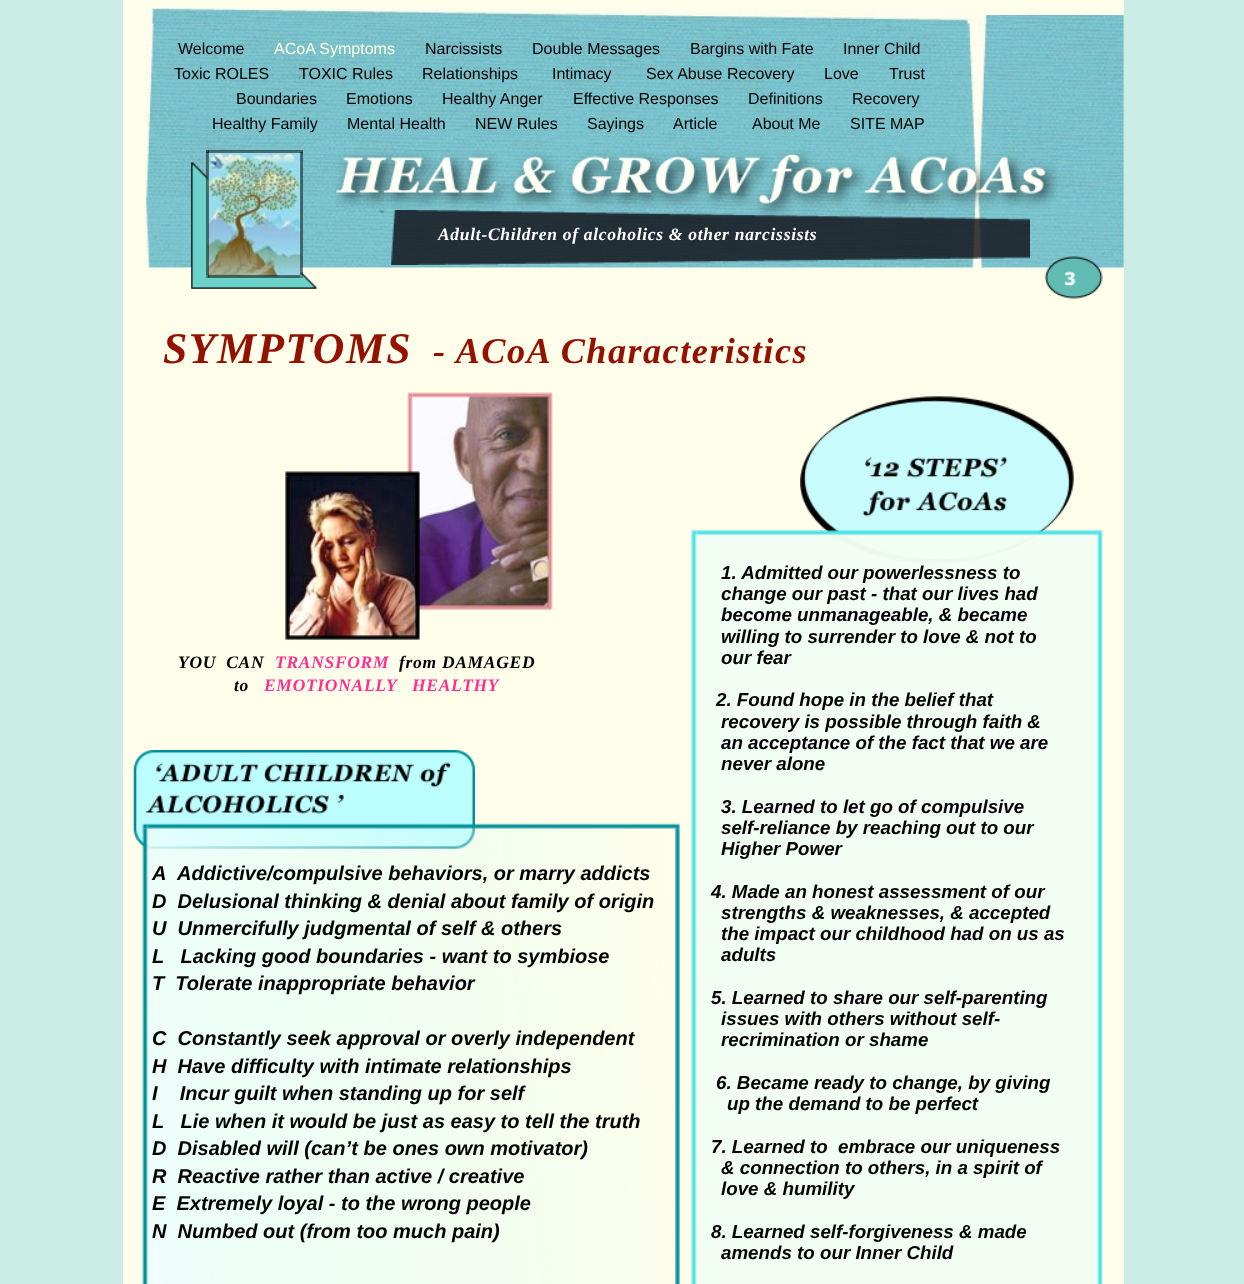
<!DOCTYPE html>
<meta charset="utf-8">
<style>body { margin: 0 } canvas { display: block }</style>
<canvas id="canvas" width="1244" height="1284"></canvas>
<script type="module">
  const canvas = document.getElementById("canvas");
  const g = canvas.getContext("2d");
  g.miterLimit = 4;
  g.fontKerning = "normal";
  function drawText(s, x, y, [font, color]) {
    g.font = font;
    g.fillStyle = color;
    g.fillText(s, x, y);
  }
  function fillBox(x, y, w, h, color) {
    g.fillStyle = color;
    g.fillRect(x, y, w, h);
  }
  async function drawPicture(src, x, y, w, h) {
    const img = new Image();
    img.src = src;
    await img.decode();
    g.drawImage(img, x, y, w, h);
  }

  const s1 = ["16px Liberation Sans", "#000000"];
  const s2 = ["16px Liberation Sans", "#FFFFE3"];
  const s3 = ["italic bold 17.5px Liberation Serif", "#FFFFFF"];
  const s4 = ["italic bold 43.75px Liberation Serif", "#941100"];
  const s5 = ["italic bold 36.25px Liberation Serif", "#941100"];
  const s6 = ["italic bold 17.5px Liberation Serif", "#000000"];
  const s7 = ["italic bold 17.5px Liberation Serif", "#FF2F92"];
  const s8 = ["italic bold 18.75px Liberation Sans", "#000000"];
  const s9 = ["italic bold 20px Liberation Sans", "#000000"];

  fillBox(0, 0, 1244, 1284, "#CCECE6");
  fillBox(123, 0, 1001, 1284, "#FFFEEB");
  await drawPicture("pic2.png", 145, 15, 979, 253);
  await drawPicture("pic1.png", 145, 8, 831, 16);
  drawText("Welcome", 178, 54, s1);
  drawText("ACoA Symptoms", 274, 54, s2);
  drawText("Narcissists", 425, 54, s1);
  drawText("Double Messages", 532, 54, s1);
  drawText("Bargins with Fate", 690, 54, s1);
  drawText("Inner Child", 843, 54, s1);
  drawText("Toxic ROLES", 174, 79, s1);
  drawText("TOXIC Rules", 299, 79, s1);
  drawText("Relationships", 422, 79, s1);
  drawText("Intimacy", 552, 79, s1);
  drawText("Sex Abuse Recovery", 646, 79, s1);
  drawText("Love", 824, 79, s1);
  drawText("Trust", 889, 79, s1);
  drawText("Boundaries", 236, 104, s1);
  drawText("Emotions", 346, 104, s1);
  drawText("Healthy Anger", 442, 104, s1);
  drawText("Effective Responses", 573, 104, s1);
  drawText("Definitions", 748, 104, s1);
  drawText("Recovery", 852, 104, s1);
  drawText("Healthy Family", 212, 129, s1);
  drawText("Mental Health", 347, 129, s1);
  drawText("NEW Rules", 475, 129, s1);
  drawText("Sayings", 587, 129, s1);
  drawText("Article", 673, 129, s1);
  drawText("About Me", 752, 129, s1);
  drawText("SITE MAP", 850, 129, s1);
  await drawPicture("pic6.png", 191, 162, 127, 127);
  await drawPicture("pic3.png", 207, 151, 95, 126);
  fillBox(206, 152, 3, 123, "rgba(0, 0, 0, 0.5)");
  fillBox(206, 150, 3, 3, "rgba(0, 0, 0, 0.59)");
  fillBox(208, 150, 92, 3, "rgba(0, 0, 0, 0.5)");
  fillBox(300, 150, 3, 3, "rgba(0, 0, 0, 0.5)");
  fillBox(300, 152, 3, 123, "rgba(0, 0, 0, 0.5)");
  fillBox(208, 275, 92, 3, "rgba(0, 0, 0, 0.5)");
  fillBox(206, 275, 3, 3, "rgba(0, 0, 0, 0.4)");
  fillBox(300, 275, 3, 3, "rgba(0, 0, 0, 0.31)");
  await drawPicture("pic4.png", 335, 150, 723, 68);
  await drawPicture("pic5.png", 391, 210, 639, 55);
  g.letterSpacing = "0.7px";
  drawText("Adult-Children of alcoholics & other narcissists", 438, 240, s3);
  await drawPicture("pic7.png", 1044, 256, 59, 43);
  g.letterSpacing = "1.45px";
  drawText("SYMPTOMS", 163, 363, s4);
  drawText("- ACoA Characteristics", 433, 363, s5);
  await drawPicture("pic20.png", 410, 395, 140, 213);
  await drawPicture("pic24.png", 547, 605, 6, 5);
  await drawPicture("pic23.png", 418, 605, 130, 5);
  await drawPicture("pic11.png", 287, 473, 132, 165);
  await drawPicture("pic12.png", 285, 476, 5, 159);
  await drawPicture("pic8.png", 285, 471, 5, 6);
  await drawPicture("pic21.png", 407, 397, 6, 76);
  await drawPicture("pic9.png", 290, 471, 125, 6);
  await drawPicture("pic10.png", 415, 471, 5, 6);
  await drawPicture("pic13.png", 415, 476, 5, 159);
  await drawPicture("pic14.png", 285, 635, 5, 5);
  await drawPicture("pic15.png", 290, 635, 125, 5);
  await drawPicture("pic16.png", 415, 635, 5, 5);
  await drawPicture("pic17.png", 407, 392, 6, 6);
  await drawPicture("pic18.png", 412, 392, 136, 6);
  await drawPicture("pic19.png", 547, 392, 6, 6);
  await drawPicture("pic22.png", 547, 397, 6, 208);
  await drawPicture("pic25.png", 800, 396, 274, 168);
  g.letterSpacing = "0.7px";
  drawText("YOU  CAN", 178, 668, s6);
  drawText("TRANSFORM", 275, 668, s7);
  drawText("from DAMAGED", 399, 668, s6);
  drawText("to", 234, 691, s6);
  drawText("EMOTIONALLY   HEALTHY", 264, 691, s7);
  fillBox(694, 532, 405, 752, "rgba(242, 254, 243, 0.98)");
  await drawPicture("pic26.png", 691, 530, 6, 5);
  await drawPicture("pic27.png", 696, 530, 402, 5);
  await drawPicture("pic28.png", 1097, 530, 6, 5);
  await drawPicture("pic29.png", 691, 535, 6, 749);
  g.letterSpacing = "0px";
  drawText("1. Admitted our powerlessness to", 721, 579, s8);
  drawText("change our past - that our lives had", 721, 600, s8);
  drawText("become unmanageable, & became", 721, 621, s8);
  drawText("willing to surrender to love & not to", 721, 643, s8);
  drawText("our fear", 721, 664, s8);
  drawText("2. Found hope in the belief that", 716, 706, s8);
  drawText("recovery is possible through faith &", 721, 728, s8);
  drawText("an acceptance of the fact that we are", 721, 749, s8);
  drawText("never alone", 721, 770, s8);
  drawText("3. Learned to let go of compulsive", 721, 813, s8);
  drawText("self-reliance by reaching out to our", 721, 834, s8);
  drawText("Higher Power", 721, 855, s8);
  drawText("4. Made an honest assessment of our", 711, 898, s8);
  drawText("strengths & weaknesses, & accepted", 721, 919, s8);
  drawText("the impact our childhood had on us as", 721, 940, s8);
  drawText("adults", 721, 961, s8);
  drawText("5. Learned to share our self-parenting", 711, 1004, s8);
  drawText("issues with others without self-", 721, 1025, s8);
  drawText("recrimination or shame", 721, 1046, s8);
  drawText("6. Became ready to change, by giving", 716, 1089, s8);
  drawText("up the demand to be perfect", 727, 1110, s8);
  drawText("7. Learned to  embrace our uniqueness", 711, 1153, s8);
  drawText("& connection to others, in a spirit of", 721, 1174, s8);
  drawText("love & humility", 721, 1195, s8);
  drawText("8. Learned self-forgiveness & made", 711, 1238, s8);
  drawText("amends to our Inner Child", 721, 1259, s8);
  await drawPicture("pic30.png", 1097, 535, 6, 749);
  await drawPicture("pic31.png", 133, 750, 342, 99);
  await drawPicture("pic32.png", 145, 826, 528, 458);
  await drawPicture("pic36.png", 142, 828, 6, 456);
  await drawPicture("pic33.png", 142, 823, 6, 6);
  await drawPicture("pic34.png", 147, 823, 528, 6);
  await drawPicture("pic35.png", 675, 823, 5, 6);
  drawText("A", 152, 880, s9);
  drawText("Addictive/compulsive behaviors, or marry addicts", 177, 880, s9);
  drawText("D  Delusional thinking & denial about family of origin", 152, 908, s9);
  drawText("U  Unmercifully judgmental of self & others", 152, 935, s9);
  drawText("L   Lacking good boundaries - want to symbiose", 152, 963, s9);
  drawText("T  Tolerate inappropriate behavior", 152, 990, s9);
  drawText("C  Constantly seek approval or overly independent", 152, 1045, s9);
  drawText("H  Have difficulty with intimate relationships", 152, 1073, s9);
  drawText("I    Incur guilt when standing up for self", 152, 1100, s9);
  drawText("L   Lie when it would be just as easy to tell the truth", 152, 1128, s9);
  drawText("D  Disabled will (can’t be ones own motivator)", 152, 1155, s9);
  drawText("R  Reactive rather than active / creative", 152, 1183, s9);
  drawText("E  Extremely loyal - to the wrong people", 152, 1210, s9);
  drawText("N  Numbed out (from too much pain)", 152, 1238, s9);
  await drawPicture("pic37.png", 675, 828, 5, 456);
</script>
